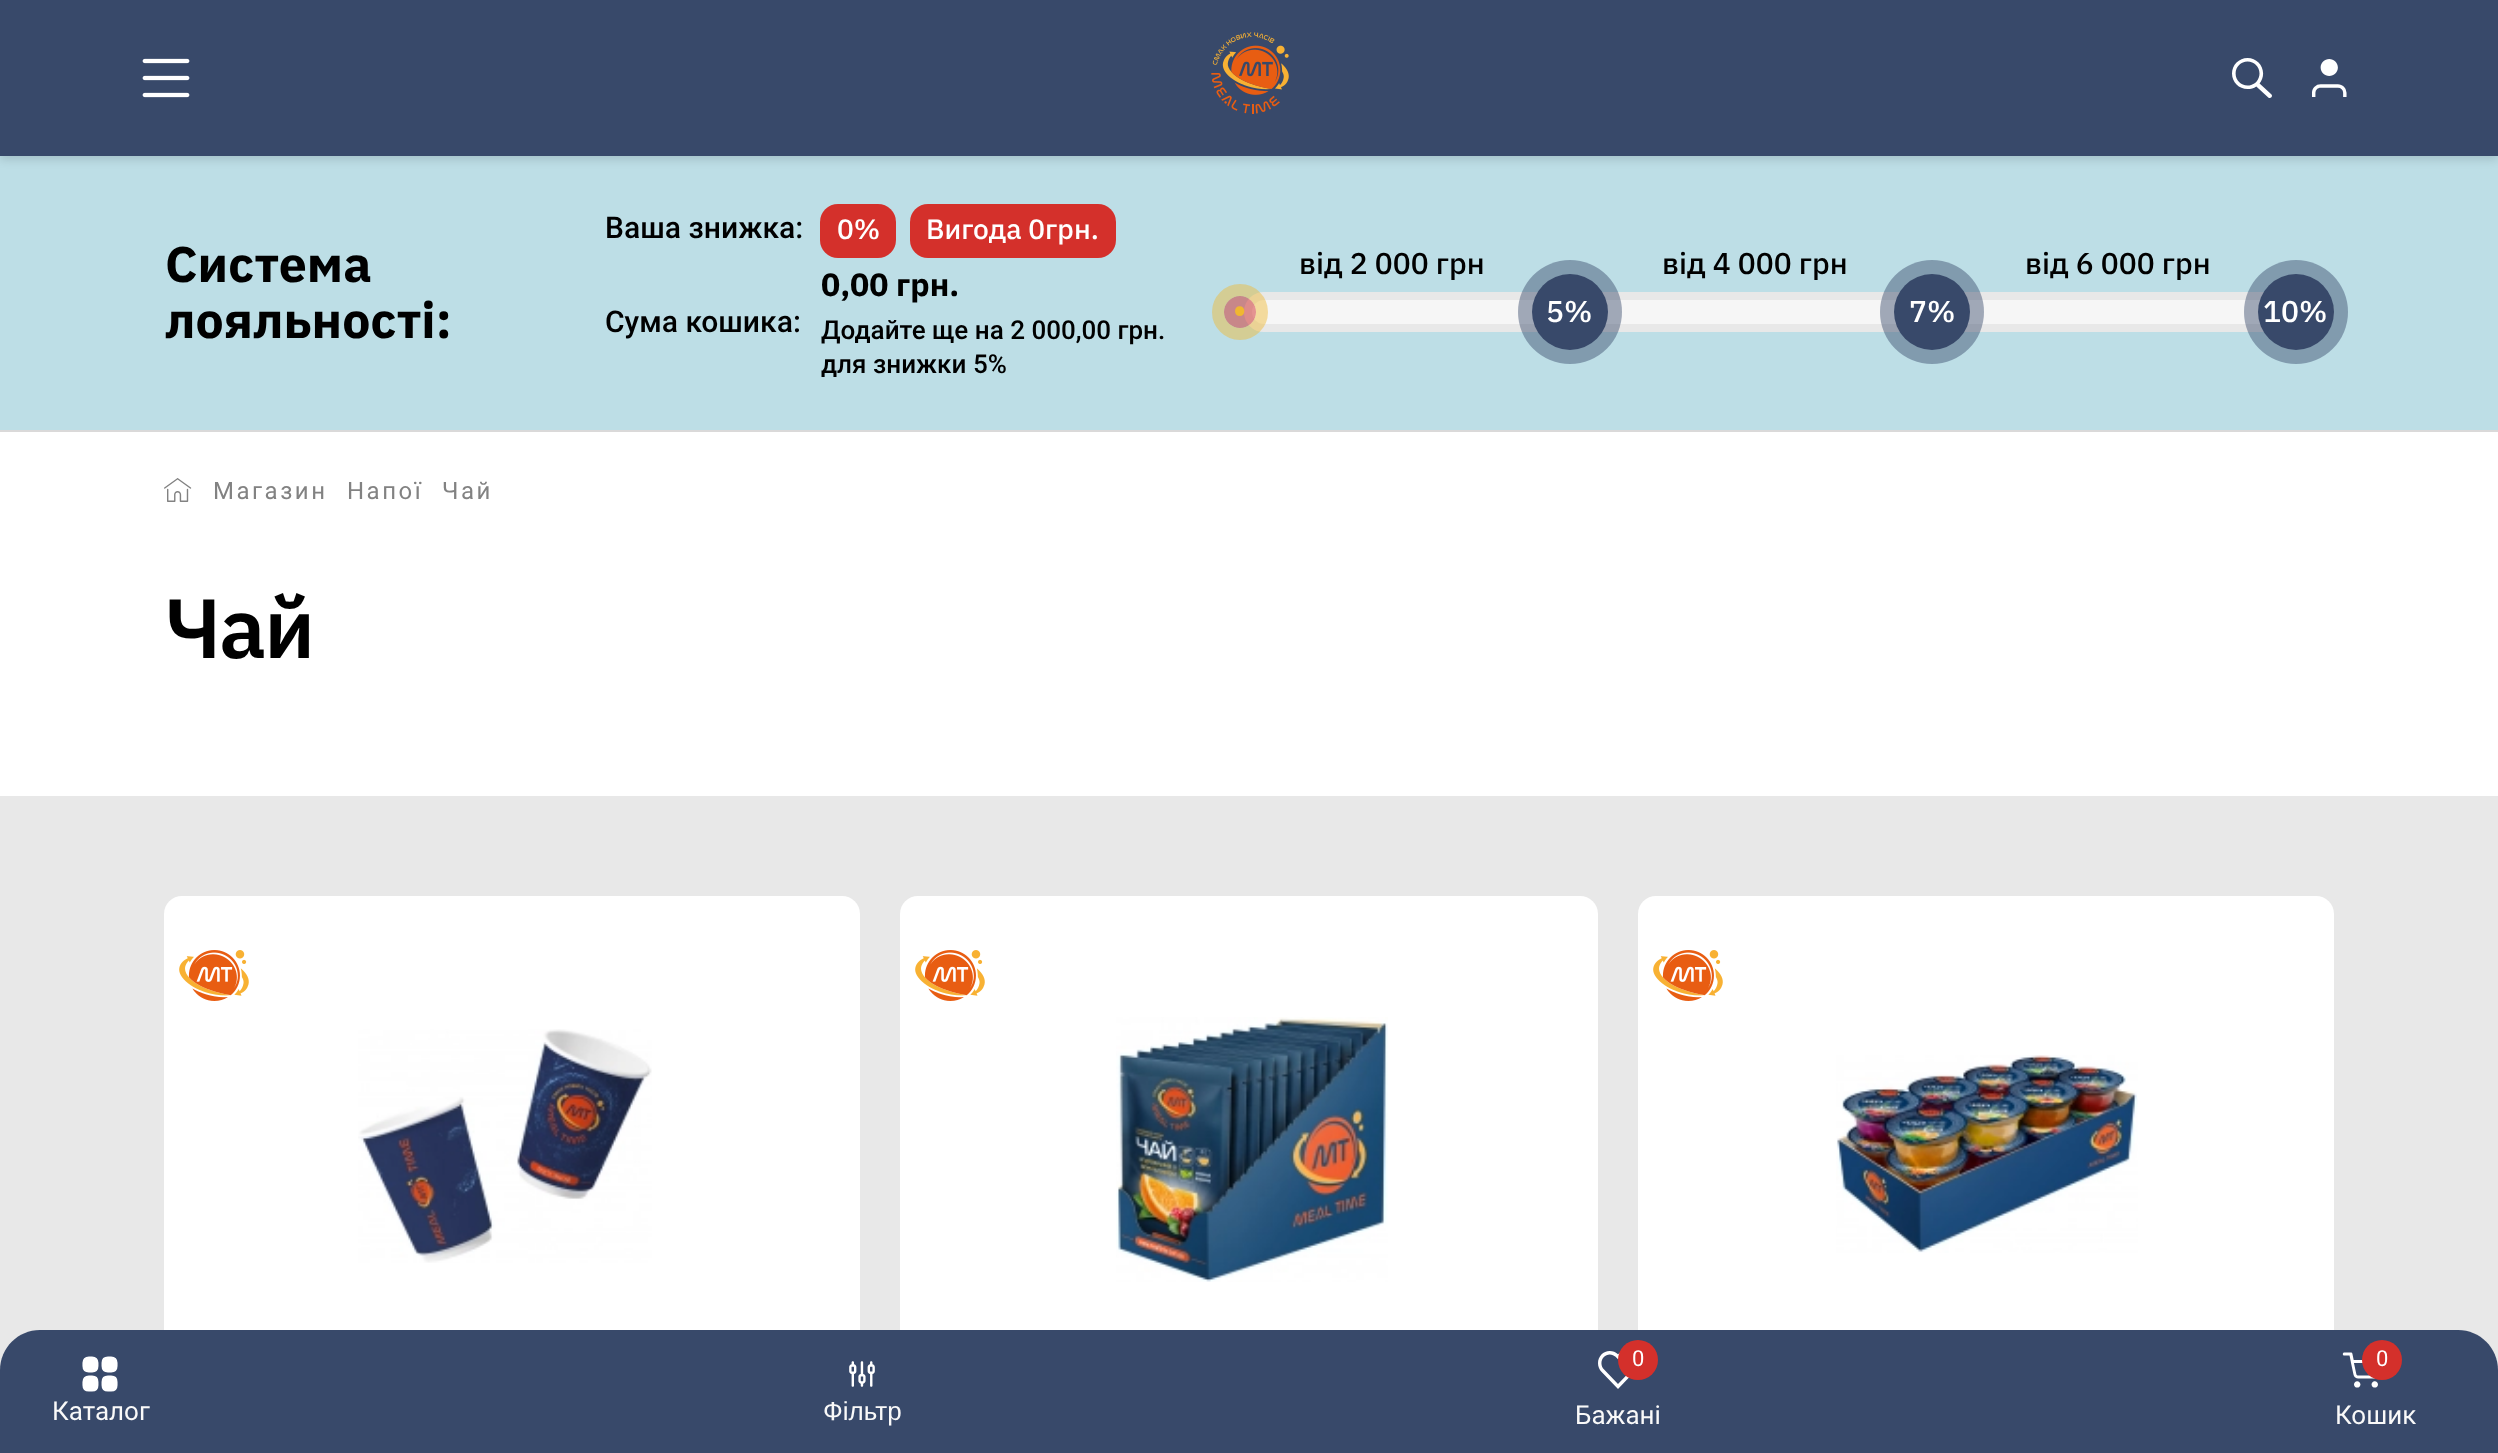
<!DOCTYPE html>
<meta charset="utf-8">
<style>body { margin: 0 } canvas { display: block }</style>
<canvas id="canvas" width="2498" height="1453"></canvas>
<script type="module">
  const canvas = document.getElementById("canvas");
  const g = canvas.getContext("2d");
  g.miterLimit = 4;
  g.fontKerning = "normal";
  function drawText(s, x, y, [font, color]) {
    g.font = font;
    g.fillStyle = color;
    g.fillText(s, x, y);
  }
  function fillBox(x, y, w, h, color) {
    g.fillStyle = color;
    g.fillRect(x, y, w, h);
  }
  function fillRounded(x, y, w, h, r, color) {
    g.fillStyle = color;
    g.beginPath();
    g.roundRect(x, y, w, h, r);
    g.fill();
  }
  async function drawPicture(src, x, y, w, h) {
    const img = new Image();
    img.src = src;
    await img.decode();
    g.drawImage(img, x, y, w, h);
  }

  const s1 = ["bold 50px IBM Plex Sans", "#000000"];
  const s2 = ["500 30px Roboto", "#000000"];
  const s3 = ["500 28px IBM Plex Sans", "#FFFFFF"];
  const s4 = ["bold 32px IBM Plex Sans", "#000000"];
  const s5 = ["500 26px Roboto", "#000000"];
  const s6 = ["500 30px IBM Plex Sans", "#000000"];
  const s7 = ["46px Roboto", "#F0B731"];
  const s8 = ["500 30px IBM Plex Sans", "#FFFFFF"];
  const s9 = ["24px Roboto", "#828282"];
  const s10 = ["600 84px IBM Plex Sans", "#000000"];
  const s11 = ["26px Roboto", "#F9F9F9"];
  const s12 = ["26px Liberation Sans", "#F9F9F9"];
  const s13 = ["22px Roboto", "#FFFFFF"];

  fillBox(0, 0, 2498, 1453, "#FFFFFF");
  fillBox(0, 156, 2498, 274, "#BDDEE6");
  g.fillStyle = "rgba(0, 0, 0, 0.12)";
  g.filter = "blur(4px)";
  g.beginPath();
  g.rect(0, 4, 2498, 156);
  g.fill();
  g.filter = "none";
  fillBox(0, 0, 2498, 156, "#38496A");
  await drawPicture("pic1.png", 142, 58, 48, 40);
  await drawPicture("pic2.png", 1211, 32, 78, 82);
  await drawPicture("pic3.png", 2232, 58, 40, 40);
  await drawPicture("pic4.png", 2312, 59, 35, 38);
  fillBox(0, 430, 2498, 2, "#DAD9D9");
  drawText("Система", 165, 282, s1);
  drawText("лояльності:", 165, 338, s1);
  drawText("Ваша знижка:", 605, 238, s2);
  fillRounded(820, 204, 76, 54, 18, "#D4302B");
  drawText("0%", 837, 239, s3);
  fillRounded(910, 204, 206, 54, 18, "#D4302B");
  drawText("Вигода 0грн.", 926, 239, s3);
  drawText("Сума кошика:", 605, 332, s2);
  drawText("0,00 грн.", 821, 296, s4);
  drawText("Додайте ще на 2 000,00 грн.", 821, 339, s5);
  drawText("для знижки 5%", 821, 373, s5);
  drawText("від 2 000 грн", 1299, 274, s6);
  drawText("від 4 000 грн", 1662, 274, s6);
  drawText("від 6 000 грн", 2025, 274, s6);
  g.fillStyle = "#F6F6F6";
  g.beginPath();
  g.roundRect(1248, 296, 1082, 32, 16);
  g.fill();
  g.strokeStyle = "#E8E8E8";
  g.lineWidth = 8;
  g.stroke();
  g.fillStyle = "rgba(212, 48, 43, 0.5)";
  g.beginPath();
  g.arc(1240, 312, 16, 0, Math.PI * 2);
  g.fill();
  drawText("•", 1232, 328, s7);
  g.beginPath();
  g.arc(1240, 312, 22, 0, Math.PI * 2);
  g.strokeStyle = "rgba(240, 183, 49, 0.45)";
  g.lineWidth = 12;
  g.stroke();
  g.fillStyle = "rgba(56, 73, 106, 0.45)";
  g.beginPath();
  g.arc(1570, 312, 52, 0, Math.PI * 2);
  g.fill();
  g.fillStyle = "#38496A";
  g.beginPath();
  g.arc(1570, 312, 38, 0, Math.PI * 2);
  g.fill();
  drawText("5%", 1546, 322, s8);
  g.fillStyle = "rgba(56, 73, 106, 0.45)";
  g.beginPath();
  g.arc(1932, 312, 52, 0, Math.PI * 2);
  g.fill();
  g.fillStyle = "#38496A";
  g.beginPath();
  g.arc(1932, 312, 38, 0, Math.PI * 2);
  g.fill();
  drawText("7%", 1909, 322, s8);
  g.fillStyle = "rgba(56, 73, 106, 0.45)";
  g.beginPath();
  g.arc(2296, 312, 52, 0, Math.PI * 2);
  g.fill();
  g.fillStyle = "#38496A";
  g.beginPath();
  g.arc(2296, 312, 38, 0, Math.PI * 2);
  g.fill();
  drawText("10%", 2263, 322, s8);
  await drawPicture("pic5.png", 164, 478, 28, 24);
  g.letterSpacing = "2.5px";
  drawText("Магазин", 213, 499, s9);
  drawText("Напої", 347, 499, s9);
  drawText("Чай", 442, 499, s9);
  g.letterSpacing = "-2px";
  drawText("Чай", 165, 658, s10);
  fillBox(0, 796, 2498, 574, "#E8E8E8");
  fillRounded(164, 896, 696, 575, 18, "#FFFFFF");
  await drawPicture("pic6.png", 179, 950, 70, 51);
  await drawPicture("pic7.png", 358, 1029, 294, 234);
  fillRounded(900, 896, 698, 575, 18, "#FFFFFF");
  await drawPicture("pic6.png", 915, 950, 70, 51);
  await drawPicture("pic8.png", 1116, 1017, 272, 265);
  fillRounded(1638, 896, 696, 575, 18, "#FFFFFF");
  await drawPicture("pic6.png", 1653, 950, 70, 51);
  await drawPicture("pic9.png", 1836, 1055, 302, 198);
  g.fillStyle = "#38496A";
  g.beginPath();
  g.moveTo(40, 1330);
  g.lineTo(2458, 1330);
  g.bezierCurveTo(2480, 1330, 2498, 1348, 2498, 1370);
  g.lineTo(2498, 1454);
  g.lineTo(0, 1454);
  g.lineTo(0, 1370);
  g.bezierCurveTo(0, 1348, 18, 1330, 40, 1330);
  g.closePath();
  g.fill();
  await drawPicture("pic10.png", 82, 1356, 36, 36);
  g.letterSpacing = "0px";
  drawText("Каталог", 52, 1420, s11);
  await drawPicture("pic11.png", 849, 1361, 26, 26);
  drawText("Фільтр", 823, 1420, s12);
  await drawPicture("pic12.png", 1598, 1351, 32, 38);
  g.fillStyle = "#D4302B";
  g.beginPath();
  g.arc(1638, 1360, 20, 0, Math.PI * 2);
  g.fill();
  drawText("0", 1632, 1366, s13);
  drawText("Бажані", 1575, 1424, s11);
  await drawPicture("pic13.png", 2342, 1352, 36, 36);
  g.fillStyle = "#D4302B";
  g.beginPath();
  g.arc(2382, 1360, 20, 0, Math.PI * 2);
  g.fill();
  drawText("0", 2376, 1366, s13);
  drawText("Кошик", 2335, 1424, s11);
</script>
